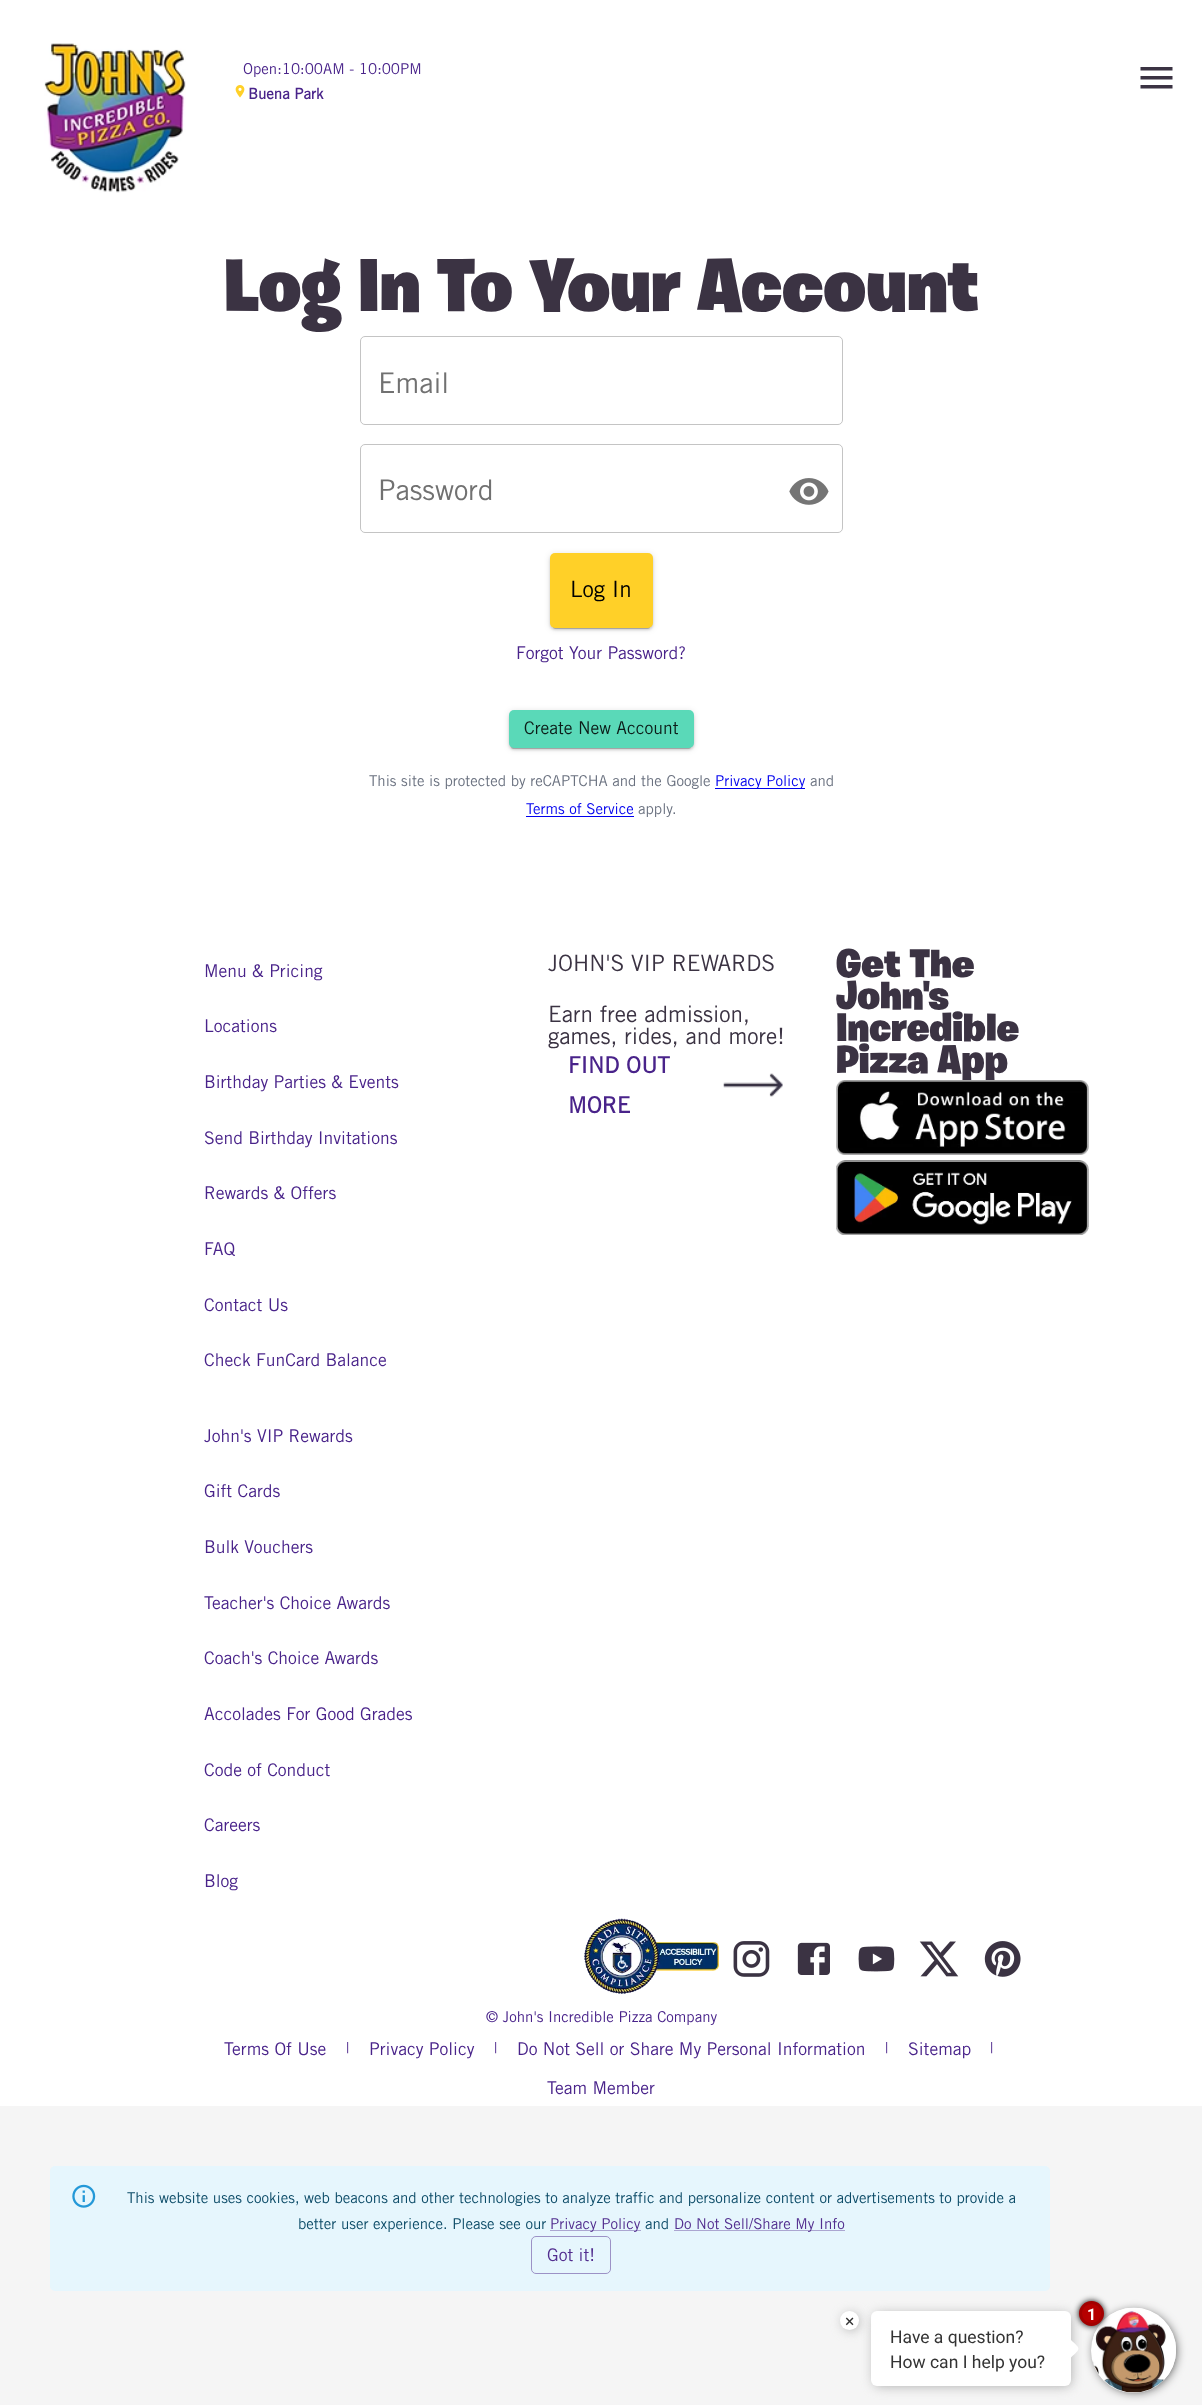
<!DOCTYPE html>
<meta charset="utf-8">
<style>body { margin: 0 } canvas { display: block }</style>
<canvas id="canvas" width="1202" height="2405"></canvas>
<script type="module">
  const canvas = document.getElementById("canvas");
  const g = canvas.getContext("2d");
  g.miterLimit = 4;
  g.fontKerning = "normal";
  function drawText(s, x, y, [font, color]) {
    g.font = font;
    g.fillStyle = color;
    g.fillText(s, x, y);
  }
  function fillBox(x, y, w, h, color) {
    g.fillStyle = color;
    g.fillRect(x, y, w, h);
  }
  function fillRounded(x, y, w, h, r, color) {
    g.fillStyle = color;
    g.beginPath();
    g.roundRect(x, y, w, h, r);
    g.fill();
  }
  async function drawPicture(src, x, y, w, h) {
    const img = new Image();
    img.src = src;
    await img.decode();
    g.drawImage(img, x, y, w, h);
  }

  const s1 = ["15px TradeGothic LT", "#49238A"];
  const s2 = ["bold 15px TradeGothic LT", "#49238A"];
  const s3 = ["900 75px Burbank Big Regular", "#3B3343"];
  const s4 = ["28.5px TradeGothic LT", "#717171"];
  const s5 = ["22.5px TradeGothic LT", "#000000"];
  const s6 = ["17.5px TradeGothic LT", "#49238A"];
  const s7 = ["17.5px TradeGothic LT", "#0C1C18"];
  const s8 = ["15px TradeGothic LT", "#6B7280"];
  const s9 = ["15px TradeGothic LT", "#0000EE"];
  const s10 = ["22.5px TradeGothic LT", "#3B3343"];
  const s11 = ["bold 22.5px TradeGothic LT", "#49238A"];
  const s12 = ["900 40px Burbank Big Regular", "#3B3343"];
  const s13 = ["15px TradeGothic LT", "#0D4C68"];
  const s14 = ["15px TradeGothic LT", "#522E8F"];
  const s15 = ["17.5px TradeGothic LT", "#522E8F"];
  const s16 = ["bold 16px Roboto", "#FFFFFF"];
  const s17 = ["17.5px Roboto", "#333333"];

  fillBox(0, 0, 1202, 2405, "#F5F5F5");
  fillBox(0, 0, 1202, 2106, "#FFFFFF");
  await drawPicture("pic1.png", 44, 43, 142, 150);
  drawText("Open:10:00AM - 10:00PM", 243, 74, s1);
  await drawPicture("pic2.png", 235, 85, 10, 13);
  drawText("Buena Park", 248, 99, s2);
  g.fillStyle = "#3B3343";
  g.beginPath();
  g.moveTo(1140.5, 88.5);
  g.lineTo(1172.5, 88.5);
  g.lineTo(1172.5, 85);
  g.lineTo(1140.5, 85);
  g.closePath();
  g.moveTo(1140.5, 79.5);
  g.lineTo(1172.5, 79.5);
  g.lineTo(1172.5, 76);
  g.lineTo(1140.5, 76);
  g.closePath();
  g.moveTo(1140.5, 67);
  g.lineTo(1140.5, 70.5);
  g.lineTo(1172.5, 70.5);
  g.lineTo(1172.5, 67);
  g.closePath();
  g.fill();
  drawText("Log In To Your Account", 224, 311, s3);
  g.beginPath();
  g.roundRect(360.5, 336.5, 482, 88, 4.5);
  g.strokeStyle = "#C4C4C4";
  g.stroke();
  drawText("Email", 378, 393, s4);
  await drawPicture("pic3.png", 789, 478, 40, 27);
  g.beginPath();
  g.roundRect(360.5, 444.5, 482, 88, 4.5);
  g.stroke();
  drawText("Password", 378, 500, s4);
  g.fillStyle = "rgba(0, 0, 0, 0.12)";
  g.filter = "blur(3px)";
  g.beginPath();
  g.roundRect(550, 554, 103, 75, 5);
  g.fill();
  g.filter = "none";
  g.fillStyle = "rgba(0, 0, 0, 0.14)";
  g.filter = "blur(1px)";
  g.beginPath();
  g.roundRect(550, 555, 103, 75, 5);
  g.fill();
  g.filter = "none";
  g.fillStyle = "rgba(0, 0, 0, 0.2)";
  g.filter = "blur(0.5px)";
  g.beginPath();
  g.roundRect(553, 559, 97, 70, 2.5);
  g.fill();
  g.filter = "none";
  fillRounded(550, 553, 103, 75, 5, "#FFD028");
  drawText("Log In", 570, 597, s5);
  drawText("Forgot Your Password?", 516, 659, s6);
  g.fillStyle = "rgba(0, 0, 0, 0.12)";
  g.filter = "blur(3px)";
  g.beginPath();
  g.roundRect(509, 711, 185, 38, 5);
  g.fill();
  g.filter = "none";
  g.fillStyle = "rgba(0, 0, 0, 0.14)";
  g.filter = "blur(1px)";
  g.beginPath();
  g.roundRect(509, 713, 185, 37, 5);
  g.fill();
  g.filter = "none";
  g.fillStyle = "rgba(0, 0, 0, 0.2)";
  g.filter = "blur(0.5px)";
  g.beginPath();
  g.roundRect(511, 716, 180, 33, 2.5);
  g.fill();
  g.filter = "none";
  fillRounded(509, 710, 185, 38, 5, "#5AD9B8");
  drawText("Create New Account", 524, 734, s7);
  drawText("This site is protected by reCAPTCHA and the Google", 369, 786, s8);
  fillBox(715, 788, 90, 1, "#0000EE");
  drawText("Privacy Policy", 715, 786, s9);
  drawText("and", 810, 786, s8);
  drawText("Terms of Service", 526, 814, s9);
  fillBox(526, 816, 108, 1, "#0000EE");
  drawText("apply.", 638, 814, s8);
  drawText("Menu & Pricing", 204, 977, s6);
  drawText("Locations", 204, 1032, s6);
  drawText("Birthday Parties & Events", 204, 1088, s6);
  drawText("Send Birthday Invitations", 204, 1144, s6);
  drawText("Rewards & Offers", 204, 1199, s6);
  drawText("FAQ", 204, 1255, s6);
  drawText("Contact Us", 204, 1311, s6);
  drawText("Check FunCard Balance", 204, 1366, s6);
  drawText("John's VIP Rewards", 204, 1442, s6);
  drawText("Gift Cards", 204, 1497, s6);
  drawText("Bulk Vouchers", 204, 1553, s6);
  drawText("Teacher's Choice Awards", 204, 1609, s6);
  drawText("Coach's Choice Awards", 204, 1664, s6);
  drawText("Accolades For Good Grades", 204, 1720, s6);
  drawText("Code of Conduct", 204, 1776, s6);
  drawText("Careers", 204, 1831, s6);
  drawText("Blog", 204, 1887, s6);
  drawText("JOHN'S VIP REWARDS", 548, 971, s10);
  drawText("Earn free admission,", 548, 1022, s10);
  drawText("games, rides, and more!", 548, 1044, s10);
  drawText("FIND OUT", 568, 1073, s11);
  await drawPicture("pic4.png", 723, 1073, 60, 24);
  drawText("MORE", 568, 1113, s11);
  drawText("Get The", 836, 977, s12);
  drawText("John's", 836, 1009, s12);
  drawText("Incredible", 836, 1041, s12);
  drawText("Pizza App", 836, 1073, s12);
  await drawPicture("pic5.png", 836, 1080, 253, 75);
  await drawPicture("pic6.png", 836, 1160, 253, 75);
  await drawPicture("pic7.png", 584, 1918, 136, 76);
  await drawPicture("pic8.png", 733, 1941, 37, 36);
  await drawPicture("pic9.png", 797, 1942, 33, 33);
  await drawPicture("pic10.png", 858, 1946, 37, 26);
  await drawPicture("pic11.png", 919, 1941, 40, 36);
  await drawPicture("pic12.png", 984, 1941, 37, 36);
  drawText("© John's Incredible Pizza Company", 486, 2022, s1);
  drawText("Terms Of Use", 224, 2055, s6);
  drawText("|", 346, 2053, s1);
  drawText("Privacy Policy", 369, 2055, s6);
  drawText("|", 494, 2053, s1);
  drawText("Do Not Sell or Share My Personal Information", 517, 2055, s6);
  drawText("|", 885, 2053, s1);
  drawText("Sitemap", 908, 2055, s6);
  drawText("|", 990, 2053, s1);
  drawText("Team Member", 547, 2094, s6);
  fillRounded(50, 2166, 1000, 125, 5, "#E6F6FD");
  await drawPicture("pic13.png", 72, 2184, 24, 24);
  drawText("This website uses cookies, web beacons and other technologies to analyze traffic and personalize content or advertisements to provide a", 127, 2203, s13);
  drawText("better user experience. Please see our", 298, 2229, s13);
  fillBox(550, 2230, 91, 1, "#ABA6D1");
  drawText("Privacy Policy", 550, 2229, s14);
  drawText("and", 645, 2229, s13);
  fillBox(674, 2230, 171, 1, "#ABA6D1");
  drawText("Do Not Sell/Share My Info", 674, 2229, s14);
  g.beginPath();
  g.roundRect(531.5, 2236.5, 79, 37, 4.5);
  g.strokeStyle = "#9C92C6";
  g.stroke();
  drawText("Got it!", 547, 2261, s15);
  g.fillStyle = "#AAAAAA";
  g.filter = "blur(6px)";
  g.beginPath();
  g.roundRect(874, 2314, 197, 72, 5);
  g.fill();
  g.filter = "none";
  fillRounded(871, 2311, 200, 75, 6, "#FFFFFF");
  g.beginPath();
  g.moveTo(1071, 2340);
  g.bezierCurveTo(1081, 2349.5, 1081, 2348, 1071, 2357.5);
  g.lineTo(1062.5, 2349);
  g.closePath();
  g.fill();
  g.fillStyle = "#000000";
  g.filter = "blur(6px)";
  g.beginPath();
  g.roundRect(1096, 2313, 78, 77, 38.5);
  g.fill();
  g.filter = "none";
  g.fillStyle = "#FFFFFF";
  g.beginPath();
  g.arc(1133.5, 2350.5, 42.5, 0, Math.PI * 2);
  g.fill();
  await drawPicture("pic14.png", 1093, 2307, 83, 86);
  g.fillStyle = "#000000";
  g.filter = "blur(3px)";
  g.beginPath();
  g.roundRect(1079, 2301, 25, 25, 12.5);
  g.fill();
  g.filter = "none";
  g.fillStyle = "#B60000";
  g.beginPath();
  g.arc(1091.5, 2313.5, 11, 0, Math.PI * 2);
  g.fill();
  g.strokeStyle = "#A30000";
  g.lineWidth = 3;
  g.stroke();
  drawText("1", 1087, 2320, s16);
  g.fillStyle = "#AAAAAA";
  g.filter = "blur(6px)";
  g.beginPath();
  g.roundRect(843, 2314, 16, 16, 8);
  g.fill();
  g.filter = "none";
  g.fillStyle = "#FFFFFF";
  g.beginPath();
  g.arc(849.5, 2320.5, 9.5, 0, Math.PI * 2);
  g.fill();
  drawText("×", 845, 2327, s17);
  drawText("Have a question?", 890, 2343, s17);
  drawText("How can I help you?", 890, 2368, s17);
</script>
